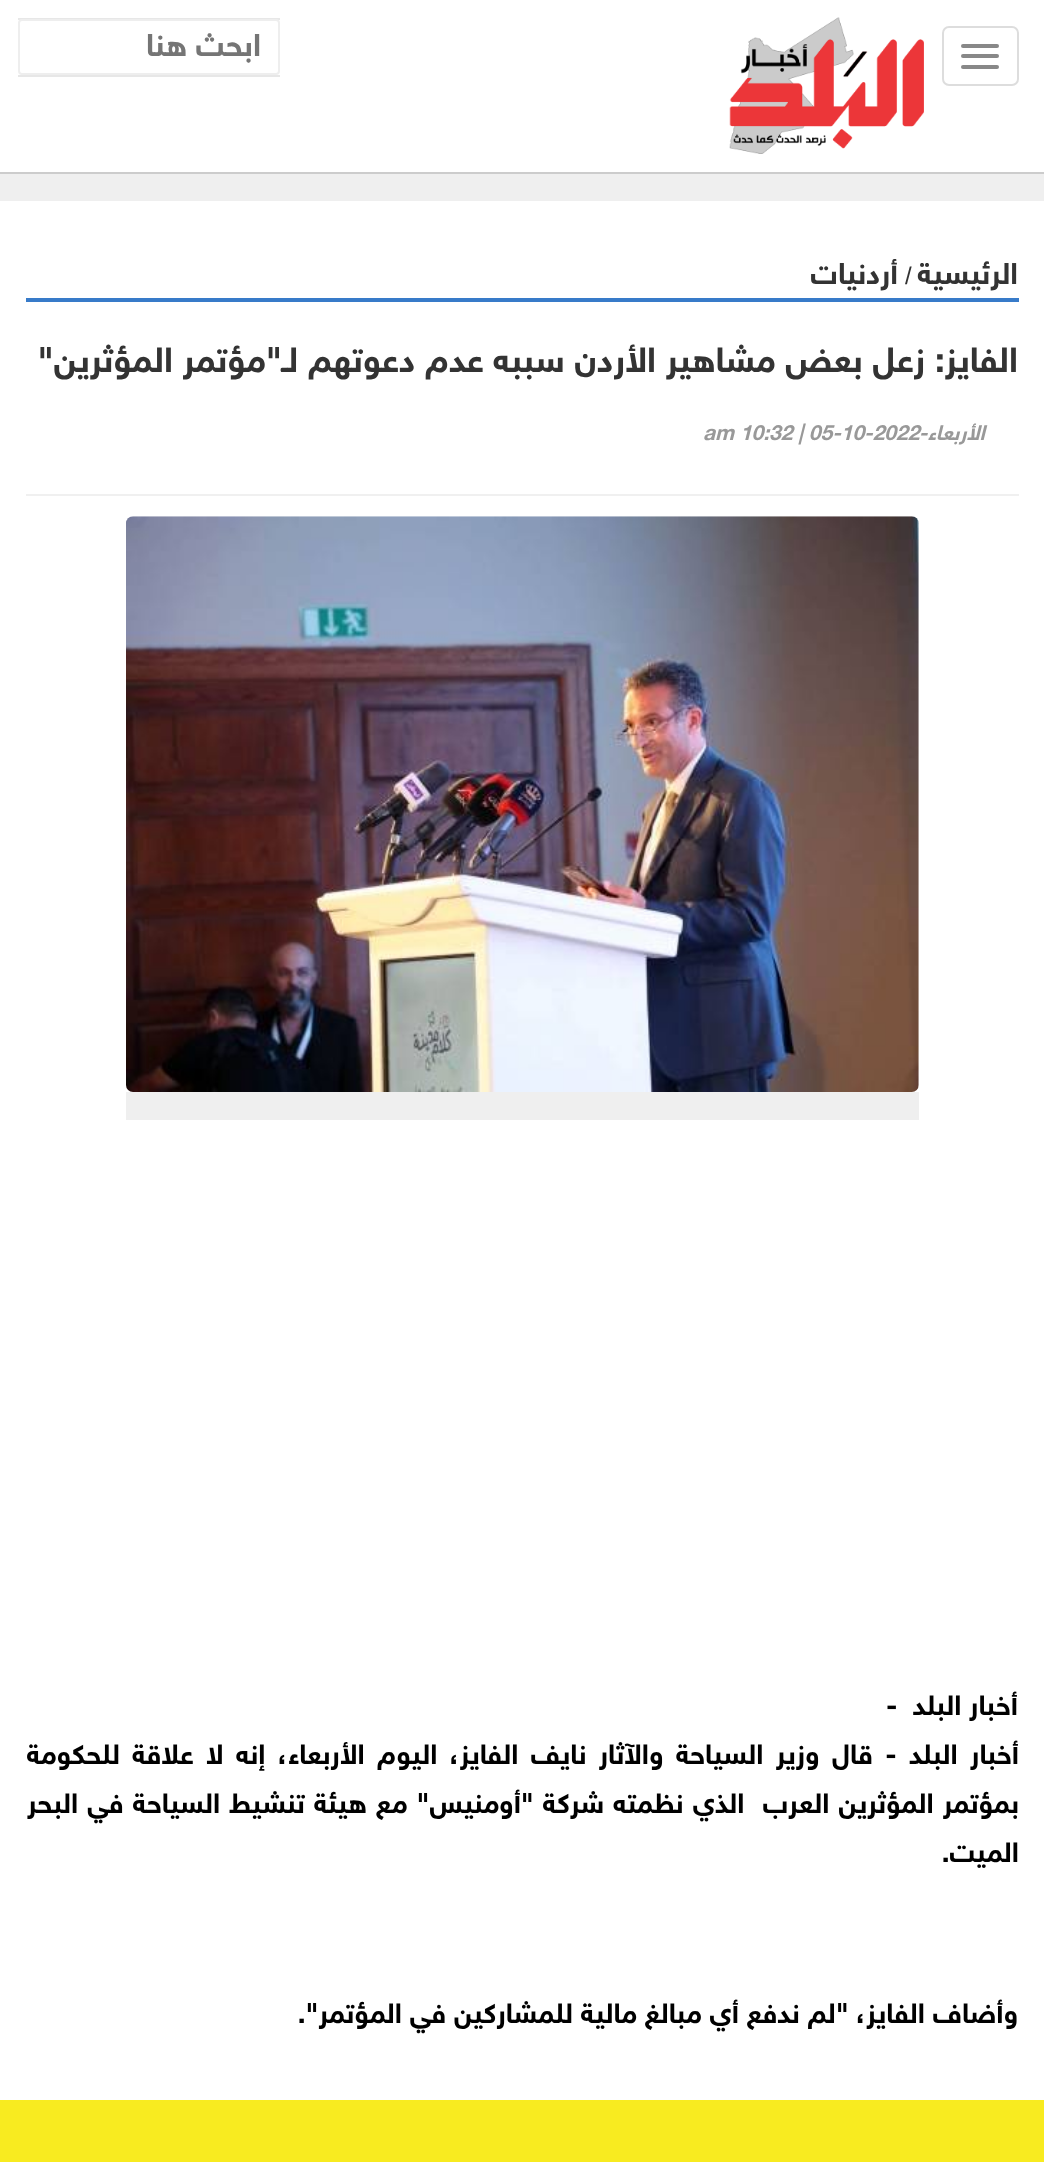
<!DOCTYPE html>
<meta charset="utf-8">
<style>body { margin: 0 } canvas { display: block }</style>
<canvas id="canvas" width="1044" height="2162"></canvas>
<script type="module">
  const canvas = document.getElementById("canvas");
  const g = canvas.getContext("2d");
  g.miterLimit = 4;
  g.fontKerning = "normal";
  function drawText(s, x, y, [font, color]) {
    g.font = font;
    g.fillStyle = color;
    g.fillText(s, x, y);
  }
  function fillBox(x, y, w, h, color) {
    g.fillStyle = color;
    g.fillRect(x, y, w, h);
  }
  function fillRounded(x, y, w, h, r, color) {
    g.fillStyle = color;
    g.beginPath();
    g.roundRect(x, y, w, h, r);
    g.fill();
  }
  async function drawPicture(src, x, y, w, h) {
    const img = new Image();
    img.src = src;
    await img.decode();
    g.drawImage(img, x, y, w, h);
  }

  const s1 = ["bold 31.5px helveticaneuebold", "#757575"];
  const s2 = ["bold 30px helveticaneuebold", "#333333"];
  const s3 = ["24px Liberation Sans", "#333333"];
  const s4 = ["bold 35px helveticaneuebold", "#333333"];
  const s5 = ["italic bold 21px helveticaneuebold", "#999999"];
  const s6 = ["bold 28px helveticaneuebold", "#000000"];

  fillBox(0, 0, 1044, 2162, "#FFFFFF");
  g.beginPath();
  g.roundRect(943, 27, 75, 58, 6);
  g.strokeStyle = "#DDDDDD";
  g.lineWidth = 2;
  g.stroke();
  fillRounded(961, 44, 38, 4, 2, "#888888");
  fillRounded(961, 54, 38, 4, 2, "#888888");
  fillRounded(961, 65, 38, 4, 2, "#888888");
  await drawPicture("pic1.png", 729, 17, 195, 137);
  fillBox(18, 18, 262, 2, "#E7E7E7");
  fillBox(18, 75, 262, 2, "#E7E7E7");
  g.fillStyle = "#FFFFFF";
  g.beginPath();
  g.roundRect(19, 20, 260, 54, 3);
  g.fill();
  g.strokeStyle = "#EEEEEE";
  g.stroke();
  g.direction = "rtl";
  drawText("ابحث هنا", 261, 56, s1);
  fillBox(0, 174, 1044, 27, "#EFEFEF");
  fillBox(0, 172, 1044, 2, "#CCCCCC");
  fillBox(26, 298, 993, 4, "#387BC9");
  drawText("الرئيسية", 1018, 284, s2);
  g.direction = "ltr";
  drawText("/", 905, 284, s3);
  g.direction = "rtl";
  drawText("أردنيات", 898, 284, s2);
  fillBox(26, 494, 993, 2, "#F0F0F0");
  drawText("الفايز: زعل بعض مشاهير الأردن سببه عدم دعوتهم لـ\"مؤتمر المؤثرين\"", 1018, 372, s4);
  g.direction = "ltr";
  drawText("am 10:32 | 05-10-2022", 703, 440, s5);
  g.direction = "rtl";
  drawText("الأربعاء-", 985, 440, s5);
  await drawPicture("pic2.png", 126, 516, 793, 576);
  fillBox(126, 1092, 793, 28, "#EFEFEF");
  drawText("أخبار البلد", 1018, 1715, s6);
  g.direction = "ltr";
  drawText("-", 886, 1715, s6);
  g.wordSpacing = "4.6px";
  g.direction = "rtl";
  drawText("أخبار البلد - قال وزير السياحة والآثار نايف الفايز، اليوم الأربعاء، إنه لا علاقة للحكومة", 1019, 1764, s6);
  g.wordSpacing = "1.3px";
  drawText("بمؤتمر المؤثرين العرب  الذي نظمته شركة \"أومنيس\" مع هيئة تنشيط السياحة في البحر", 1019, 1813, s6);
  g.wordSpacing = "0px";
  drawText("الميت.", 1019, 1862, s6);
  drawText("وأضاف الفايز، \"لم ندفع أي مبالغ مالية للمشاركين في المؤتمر\".", 1018, 2023, s6);
  fillBox(0, 2100, 1044, 62, "#F8EB20");
</script>
